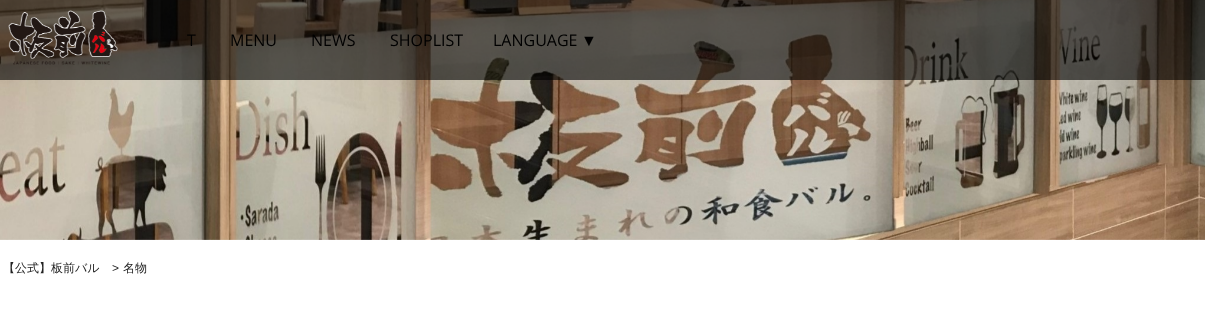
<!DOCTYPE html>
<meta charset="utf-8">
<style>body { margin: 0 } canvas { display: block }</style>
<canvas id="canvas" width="1205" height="336"></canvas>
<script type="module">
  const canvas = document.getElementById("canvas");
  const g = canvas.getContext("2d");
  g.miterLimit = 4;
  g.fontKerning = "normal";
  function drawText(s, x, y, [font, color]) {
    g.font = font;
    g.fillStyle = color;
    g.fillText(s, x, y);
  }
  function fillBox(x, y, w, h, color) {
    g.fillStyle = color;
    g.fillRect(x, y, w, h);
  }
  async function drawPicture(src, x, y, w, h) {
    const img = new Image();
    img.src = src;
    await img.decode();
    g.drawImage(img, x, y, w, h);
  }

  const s1 = ["16px Open Sans", "#000000"];
  const s2 = ["16px Liberation Sans", "#000000"];
  const s3 = ["500 12px WenQuanYi Zen Hei", "#232323"];
  const s4 = ["12px Liberation Sans", "#232323"];

  fillBox(0, 0, 1205, 336, "#FFFFFF");
  await drawPicture("pic1.png", 0, 0, 1205, 240);
  fillBox(0, 0, 1205, 80, "rgba(0, 0, 0, 0.6)");
  await drawPicture("pic2.png", 8, 10, 110, 55);
  drawText("T", 187, 46, s1);
  drawText("MENU", 230, 46, s1);
  drawText("NEWS", 311, 46, s1);
  drawText("SHOPLIST", 390, 46, s1);
  drawText("LANGUAGE", 493, 46, s1);
  drawText("▼", 581, 46, s2);
  drawText("【公式】板前バル", 3, 272, s3);
  drawText(">", 112, 272, s4);
  drawText("名物", 123, 272, s3);
</script>
